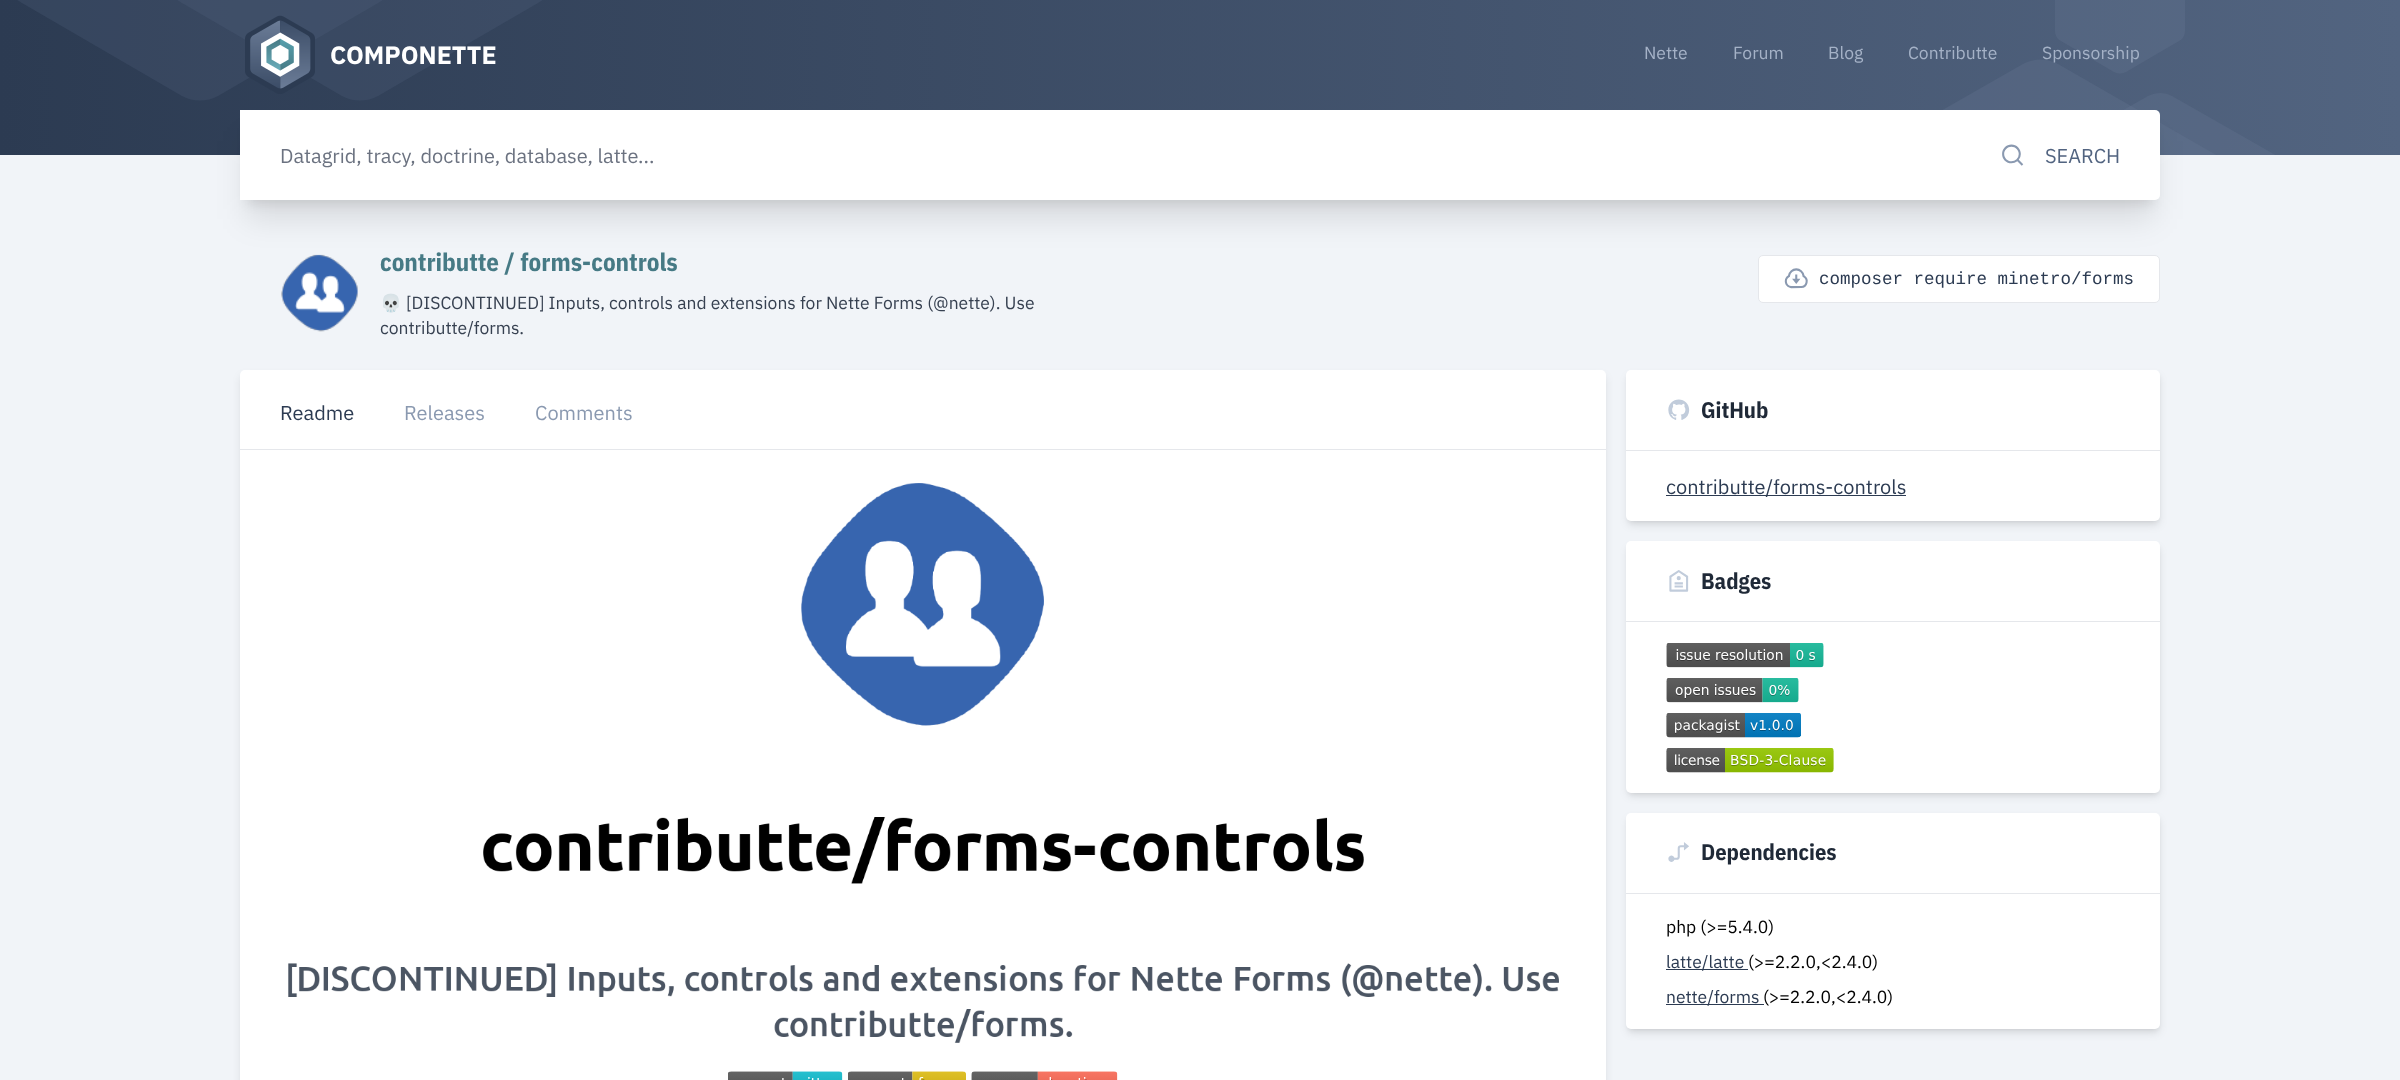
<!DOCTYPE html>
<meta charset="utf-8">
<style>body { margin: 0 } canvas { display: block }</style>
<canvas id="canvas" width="2400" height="1080"></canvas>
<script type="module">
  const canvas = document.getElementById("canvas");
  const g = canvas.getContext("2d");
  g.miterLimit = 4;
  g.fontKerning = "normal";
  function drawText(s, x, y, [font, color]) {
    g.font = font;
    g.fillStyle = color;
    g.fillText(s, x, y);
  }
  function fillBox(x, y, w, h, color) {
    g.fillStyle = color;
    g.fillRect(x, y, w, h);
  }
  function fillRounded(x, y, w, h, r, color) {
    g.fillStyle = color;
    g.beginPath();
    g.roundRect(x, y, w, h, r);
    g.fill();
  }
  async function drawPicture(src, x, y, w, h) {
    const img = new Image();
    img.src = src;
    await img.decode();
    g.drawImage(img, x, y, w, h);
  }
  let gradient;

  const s1 = ["bold 25px IBM Plex Sans", "#FFFFFF"];
  const s2 = ["17.5px IBM Plex Sans", "#A5B2C7"];
  const s3 = ["20px IBM Plex Sans", "#6B7280"];
  const s4 = ["20px IBM Plex Sans", "#526480"];
  const s5 = ["bold 25px IBM Plex Sans Condensed", "#467A85"];
  const s6 = ["17.5px Noto Color Emoji", "#374151"];
  const s7 = ["17.5px IBM Plex Sans", "#374151"];
  const s8 = ["17.5px Liberation Mono", "#2C3B52"];
  const s9 = ["20px IBM Plex Sans", "#2C3B52"];
  const s10 = ["20px IBM Plex Sans", "#8A99B0"];
  const s11 = ["bold 22.5px IBM Plex Sans Condensed", "#1F2937"];
  const s12 = ["17.5px IBM Plex Sans", "#000000"];
  const s13 = ["17.5px IBM Plex Sans", "#2C3B52"];

  fillBox(0, 0, 2400, 1080, "#F1F4F8");
  gradient = g.createLinearGradient(0, 78, 2400, 77);
  gradient.addColorStop(0, "#2C3B52");
  gradient.addColorStop(1, "#526480");
  g.fillStyle = gradient;
  g.fillRect(0, 0, 2400, 155);
  g.fillStyle = "rgba(82, 100, 128, 0.25)";
  g.beginPath();
  g.moveTo(22, -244);
  g.bezierCurveTo(11, -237, 5, -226, 4, -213);
  g.lineTo(4, -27);
  g.bezierCurveTo(5, -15, 11, -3, 22, 3);
  g.lineTo(182, 96);
  g.bezierCurveTo(193, 102, 207, 102, 218, 96);
  g.lineTo(378, 3);
  g.bezierCurveTo(389, -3, 395, -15, 396, -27);
  g.lineTo(396, -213);
  g.bezierCurveTo(395, -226, 389, -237, 378, -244);
  g.lineTo(218, -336);
  g.bezierCurveTo(207, -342, 194, -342, 183, -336);
  g.closePath();
  g.fill();
  g.beginPath();
  g.moveTo(182, -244);
  g.bezierCurveTo(171, -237, 165, -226, 164, -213);
  g.lineTo(164, -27);
  g.bezierCurveTo(165, -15, 171, -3, 182, 3);
  g.lineTo(342, 96);
  g.bezierCurveTo(353, 102, 367, 102, 378, 96);
  g.lineTo(538, 3);
  g.bezierCurveTo(549, -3, 555, -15, 556, -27);
  g.lineTo(556, -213);
  g.bezierCurveTo(555, -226, 549, -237, 538, -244);
  g.lineTo(378, -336);
  g.bezierCurveTo(367, -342, 354, -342, 343, -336);
  g.closePath();
  g.fill();
  g.save();
  g.beginPath();
  g.rect(1800, 40, 480, 115);
  g.clip();
  g.fillStyle = "rgba(107, 124, 151, 0.25)";
  g.beginPath();
  g.moveTo(1862, 156);
  g.bezierCurveTo(1851, 163, 1845, 174, 1844, 187);
  g.lineTo(1844, 373);
  g.bezierCurveTo(1845, 385, 1851, 397, 1862, 403);
  g.lineTo(2022, 496);
  g.bezierCurveTo(2033, 502, 2047, 502, 2058, 496);
  g.lineTo(2218, 403);
  g.bezierCurveTo(2229, 397, 2235, 385, 2236, 373);
  g.lineTo(2236, 187);
  g.bezierCurveTo(2235, 174, 2229, 163, 2218, 156);
  g.lineTo(2058, 64);
  g.bezierCurveTo(2047, 58, 2034, 58, 2023, 64);
  g.closePath();
  g.fill();
  g.restore();
  g.fillStyle = "rgba(107, 124, 151, 0.25)";
  g.beginPath();
  g.moveTo(2061, -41);
  g.bezierCurveTo(2057, -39, 2055, -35, 2055, -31);
  g.lineTo(2055, 31);
  g.bezierCurveTo(2055, 35, 2057, 39, 2061, 41);
  g.lineTo(2114, 72);
  g.bezierCurveTo(2118, 74, 2122, 74, 2126, 72);
  g.lineTo(2179, 41);
  g.bezierCurveTo(2183, 39, 2185, 35, 2185, 31);
  g.lineTo(2185, -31);
  g.bezierCurveTo(2185, -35, 2183, -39, 2179, -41);
  g.lineTo(2126, -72);
  g.bezierCurveTo(2122, -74, 2118, -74, 2114, -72);
  g.closePath();
  g.fill();
  g.save();
  g.beginPath();
  g.rect(2000, 80, 320, 75);
  g.clip();
  g.beginPath();
  g.moveTo(2041, 157);
  g.bezierCurveTo(2034, 162, 2030, 170, 2029, 178);
  g.lineTo(2029, 302);
  g.bezierCurveTo(2030, 310, 2034, 318, 2041, 322);
  g.lineTo(2148, 384);
  g.bezierCurveTo(2156, 388, 2164, 388, 2172, 384);
  g.lineTo(2279, 322);
  g.bezierCurveTo(2286, 318, 2290, 310, 2291, 302);
  g.lineTo(2291, 178);
  g.bezierCurveTo(2290, 170, 2286, 162, 2279, 157);
  g.lineTo(2172, 96);
  g.bezierCurveTo(2165, 92, 2156, 92, 2148, 96);
  g.closePath();
  g.fill();
  g.restore();
  await drawPicture("pic3.png", 281, 254, 77, 78);
  g.fillStyle = "#FFFFFF";
  g.beginPath();
  g.roundRect(1758.5, 255.5, 401, 47, 4.5);
  g.fill();
  g.strokeStyle = "#E5E7EB";
  g.stroke();
  g.fillStyle = "rgba(0, 0, 0, 0.1)";
  g.filter = "blur(15.5px)";
  g.beginPath();
  g.rect(246, 141, 1908, 78);
  g.fill();
  g.filter = "none";
  await drawPicture("pic1.png", 245, 15, 70, 79);
  drawText("COMPONETTE", 330, 64, s1);
  drawText("Nette", 1644, 59, s2);
  drawText("Forum", 1733, 59, s2);
  drawText("Blog", 1828, 59, s2);
  drawText("Contributte", 1908, 59, s2);
  drawText("Sponsorship", 2042, 59, s2);
  g.fillStyle = "rgba(0, 0, 0, 0.1)";
  g.filter = "blur(6px)";
  g.beginPath();
  g.rect(248, 128, 1905, 75);
  g.fill();
  g.filter = "none";
  fillRounded(240, 110, 1920, 90, 5, "#FFFFFF");
  fillBox(240, 110, 5, 90, "#FFFFFF");
  drawText("Datagrid, tracy, doctrine, database, latte...", 280, 163, s3);
  await drawPicture("pic2.png", 2002, 144, 22, 22);
  drawText("SEARCH", 2045, 163, s4);
  drawText("contributte / forms-controls", 380, 271, s5);
  drawText("💀", 380, 309, s6);
  drawText("[DISCONTINUED] Inputs, controls and extensions for Nette Forms (@nette). Use", 406, 309, s7);
  drawText("contributte/forms.", 380, 334, s7);
  await drawPicture("pic4.png", 1784, 268, 24, 21);
  drawText("composer require minetro/forms", 1819, 284, s8);
  g.fillStyle = "rgba(0, 0, 0, 0.1)";
  g.filter = "blur(4px)";
  g.beginPath();
  g.roundRect(241, 376, 1364, 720, 4);
  g.fill();
  g.filter = "none";
  fillRounded(240, 370, 1366, 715, 5, "#FFFFFF");
  drawText("Readme", 280, 420, s9);
  drawText("Releases", 404, 420, s10);
  drawText("Comments", 535, 420, s10);
  fillBox(240, 449, 1366, 1, "#E5E7EB");
  await drawPicture("pic5.png", 288, 483, 1271, 560);
  await drawPicture("pic6.png", 728, 1071, 115, 9);
  await drawPicture("pic7.png", 848, 1071, 118, 9);
  await drawPicture("pic8.png", 971, 1071, 147, 9);
  g.fillStyle = "rgba(0, 0, 0, 0.1)";
  g.filter = "blur(2.5px)";
  g.beginPath();
  g.roundRect(1629, 375, 529, 146, 2.5);
  g.fill();
  g.filter = "none";
  g.filter = "blur(4px)";
  g.beginPath();
  g.roundRect(1628, 376, 531, 149, 4);
  g.fill();
  g.filter = "none";
  fillRounded(1626, 370, 534, 151, 5, "#FFFFFF");
  await drawPicture("pic9.png", 1668, 399, 22, 21);
  drawText("GitHub", 1701, 418, s11);
  fillBox(1626, 450, 534, 1, "#E5E7EB");
  fillBox(1666, 495, 240, 1, "#2C3B52");
  drawText("contributte/forms-controls", 1666, 494, s9);
  g.fillStyle = "rgba(0, 0, 0, 0.1)";
  g.filter = "blur(2.5px)";
  g.beginPath();
  g.roundRect(1629, 546, 529, 247, 2.5);
  g.fill();
  g.filter = "none";
  g.filter = "blur(4px)";
  g.beginPath();
  g.roundRect(1628, 548, 531, 248, 4);
  g.fill();
  g.filter = "none";
  fillRounded(1626, 541, 534, 252, 5, "#FFFFFF");
  await drawPicture("pic10.png", 1669, 570, 20, 22);
  drawText("Badges", 1701, 589, s11);
  fillBox(1626, 621, 534, 1, "#E5E7EB");
  await drawPicture("pic11.png", 1666, 643, 158, 25);
  await drawPicture("pic12.png", 1666, 678, 133, 25);
  await drawPicture("pic13.png", 1666, 713, 135, 25);
  await drawPicture("pic14.png", 1666, 748, 168, 25);
  g.fillStyle = "rgba(0, 0, 0, 0.1)";
  g.filter = "blur(2.5px)";
  g.beginPath();
  g.roundRect(1629, 818, 529, 211, 2.5);
  g.fill();
  g.filter = "none";
  g.filter = "blur(4px)";
  g.beginPath();
  g.roundRect(1628, 819, 531, 214, 4);
  g.fill();
  g.filter = "none";
  fillRounded(1626, 813, 534, 216, 5, "#FFFFFF");
  await drawPicture("pic15.png", 1668, 842, 21, 20);
  drawText("Dependencies", 1701, 860, s11);
  fillBox(1626, 893, 534, 1, "#E5E7EB");
  drawText("php (>=5.4.0)", 1666, 933, s12);
  fillBox(1666, 969, 82, 1, "#2C3B52");
  drawText("latte/latte", 1666, 968, s13);
  drawText("(>=2.2.0,<2.4.0)", 1748, 968, s12);
  fillBox(1666, 1004, 98, 1, "#2C3B52");
  drawText("nette/forms", 1666, 1003, s13);
  drawText("(>=2.2.0,<2.4.0)", 1763, 1003, s12);
</script>
